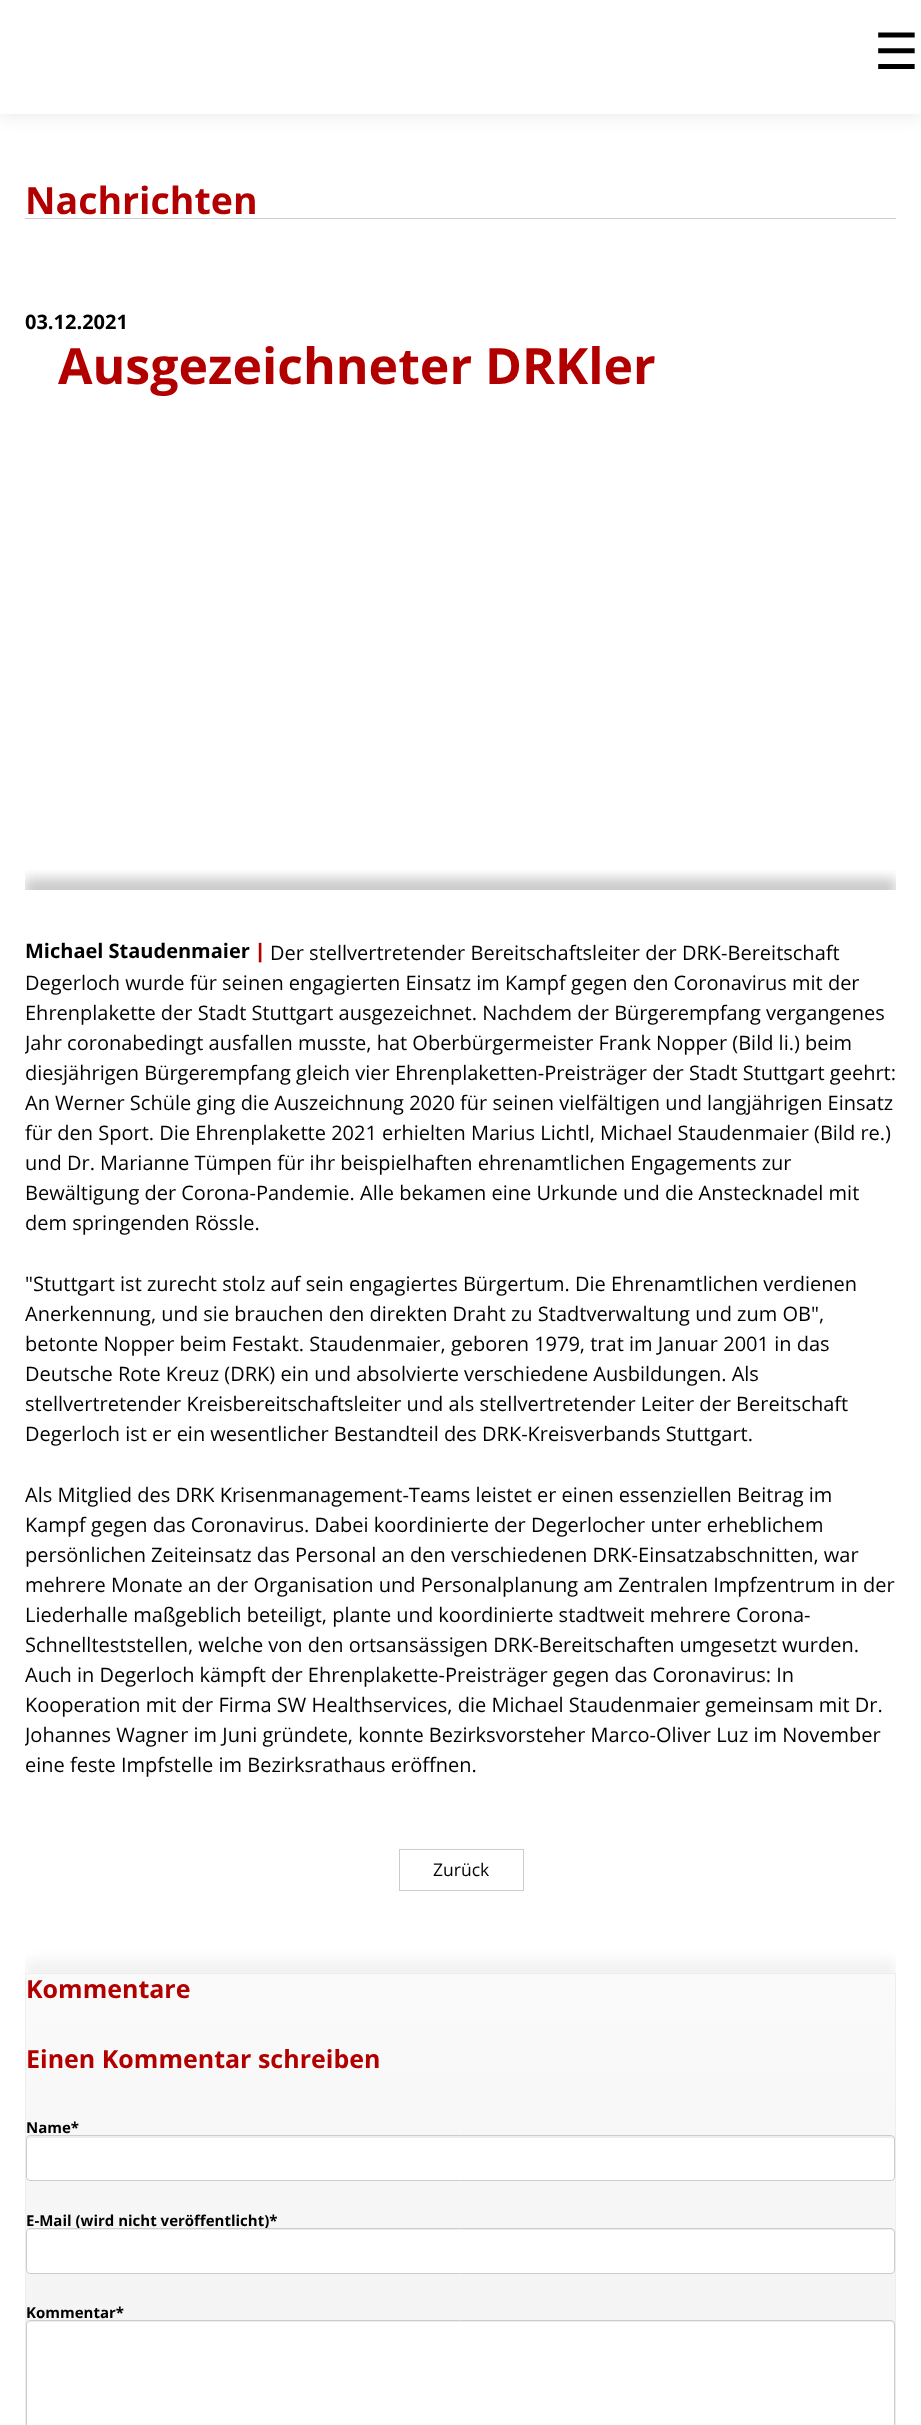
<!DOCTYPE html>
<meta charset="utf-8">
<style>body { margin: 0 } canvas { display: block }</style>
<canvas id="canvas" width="921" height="2425"></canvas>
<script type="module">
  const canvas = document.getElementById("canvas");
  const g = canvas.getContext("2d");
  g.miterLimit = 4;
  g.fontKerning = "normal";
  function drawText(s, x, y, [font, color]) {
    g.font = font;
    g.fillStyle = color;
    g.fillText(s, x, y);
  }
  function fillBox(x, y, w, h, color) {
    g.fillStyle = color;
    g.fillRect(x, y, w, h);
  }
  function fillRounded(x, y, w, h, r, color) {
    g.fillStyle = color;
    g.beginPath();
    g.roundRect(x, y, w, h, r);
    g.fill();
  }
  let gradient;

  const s1 = ["50px DejaVu Sans", "#000000"];
  const s2 = ["bold 37.5px Open Sans", "#B20000"];
  const s3 = ["bold 20px Open Sans", "#000000"];
  const s4 = ["bold 50px Open Sans", "#B20000"];
  const s5 = ["800 20px Open Sans", "#B20000"];
  const s6 = ["20px Open Sans", "#000000"];
  const s7 = ["17.5px Open Sans", "#000000"];
  const s8 = ["bold 25px Open Sans", "#B20000"];
  const s9 = ["bold 15px Open Sans", "#000000"];

  fillBox(0, 0, 921, 2425, "#FFFFFF");
  g.fillStyle = "rgba(0, 0, 0, 0.1)";
  g.filter = "blur(9.5px)";
  g.beginPath();
  g.rect(0, -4, 921, 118);
  g.fill();
  g.filter = "none";
  fillBox(0, 0, 921, 114, "#FFFFFF");
  drawText("☰", 874, 69, s1);
  fillBox(25, 218, 871, 1, "#CCCCCC");
  drawText("Nachrichten", 25, 214, s2);
  drawText("03.12.2021", 25, 329, s3);
  drawText("Ausgezeichneter DRKler", 58, 384, s4);
  g.save();
  g.beginPath();
  g.rect(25, 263, 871, 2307);
  g.clip();
  g.beginPath();
  g.rect(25, 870, 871, 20);
  g.clip();
  g.fillStyle = "rgba(0, 0, 0, 0.2)";
  g.filter = "blur(6px)";
  g.beginPath();
  g.rect(25, 878, 871, 921);
  g.fill();
  g.filter = "none";
  g.restore();
  drawText("Michael Staudenmaier", 25, 958, s3);
  drawText("|", 255, 958, s5);
  drawText("Der stellvertretender Bereitschaftsleiter der DRK-Bereitschaft", 270, 960, s6);
  drawText("Degerloch wurde für seinen engagierten Einsatz im Kampf gegen den Coronavirus mit der", 25, 990, s6);
  drawText("Ehrenplakette der Stadt Stuttgart ausgezeichnet. Nachdem der Bürgerempfang vergangenes", 25, 1020, s6);
  g.save();
  g.beginPath();
  g.rect(25, 890, 871, 921);
  g.clip();
  drawText("Jahr coronabedingt ausfallen musste, hat Oberbürgermeister Frank Nopper (Bild li.) beim", 25, 1050, s6);
  g.restore();
  drawText("diesjährigen Bürgerempfang gleich vier Ehrenplaketten-Preisträger der Stadt Stuttgart geehrt:", 25, 1080, s6);
  drawText("An Werner Schüle ging die Auszeichnung 2020 für seinen vielfältigen und langjährigen Einsatz", 25, 1110, s6);
  drawText("für den Sport. Die Ehrenplakette 2021 erhielten Marius Lichtl, Michael Staudenmaier (Bild re.)", 25, 1140, s6);
  drawText("und Dr. Marianne Tümpen für ihr beispielhaften ehrenamtlichen Engagements zur", 25, 1170, s6);
  drawText("Bewältigung der Corona-Pandemie. Alle bekamen eine Urkunde und die Anstecknadel mit", 25, 1200, s6);
  drawText("dem springenden Rössle.", 25, 1230, s6);
  drawText("\"Stuttgart ist zurecht stolz auf sein engagiertes Bürgertum. Die Ehrenamtlichen verdienen", 25, 1291, s6);
  drawText("Anerkennung, und sie brauchen den direkten Draht zu Stadtverwaltung und zum OB\",", 25, 1321, s6);
  drawText("betonte Nopper beim Festakt. Staudenmaier, geboren 1979, trat im Januar 2001 in das", 25, 1351, s6);
  drawText("Deutsche Rote Kreuz (DRK) ein und absolvierte verschiedene Ausbildungen. Als", 25, 1381, s6);
  drawText("stellvertretender Kreisbereitschaftsleiter und als stellvertretender Leiter der Bereitschaft", 25, 1411, s6);
  drawText("Degerloch ist er ein wesentlicher Bestandteil des DRK-Kreisverbands Stuttgart.", 25, 1441, s6);
  drawText("Als Mitglied des DRK Krisenmanagement-Teams leistet er einen essenziellen Beitrag im", 25, 1502, s6);
  drawText("Kampf gegen das Coronavirus. Dabei koordinierte der Degerlocher unter erheblichem", 25, 1532, s6);
  drawText("persönlichen Zeiteinsatz das Personal an den verschiedenen DRK-Einsatzabschnitten, war", 25, 1562, s6);
  drawText("mehrere Monate an der Organisation und Personalplanung am Zentralen Impfzentrum in der", 25, 1592, s6);
  drawText("Liederhalle maßgeblich beteiligt, plante und koordinierte stadtweit mehrere Corona-", 25, 1622, s6);
  drawText("Schnellteststellen, welche von den ortsansässigen DRK-Bereitschaften umgesetzt wurden.", 25, 1652, s6);
  drawText("Auch in Degerloch kämpft der Ehrenplakette-Preisträger gegen das Coronavirus: In", 25, 1682, s6);
  drawText("Kooperation mit der Firma SW Healthservices, die Michael Staudenmaier gemeinsam mit Dr.", 25, 1712, s6);
  g.save();
  g.beginPath();
  g.rect(25, 890, 871, 921);
  g.clip();
  drawText("Johannes Wagner im Juni gründete, konnte Bezirksvorsteher Marco-Oliver Luz im November", 25, 1742, s6);
  g.restore();
  drawText("eine feste Impfstelle im Bezirksrathaus eröffnen.", 25, 1772, s6);
  g.strokeStyle = "#CCCCCC";
  g.strokeRect(399.5, 1849.5, 124, 41);
  drawText("Zurück", 433, 1876, s7);
  g.save();
  g.beginPath();
  g.rect(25, 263, 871, 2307);
  g.clip();
  g.fillStyle = "rgba(0, 0, 0, 0.05)";
  g.filter = "blur(6px)";
  g.beginPath();
  g.rect(25, 1960, 871, 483);
  g.fill();
  g.filter = "none";
  g.restore();
  gradient = g.createLinearGradient(461, 1974, 461, 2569);
  gradient.addColorStop(0, "#FAFAFA");
  gradient.addColorStop(1, "#F0F0F0");
  g.fillStyle = gradient;
  g.fillRect(26, 1974, 869, 350);
  g.strokeStyle = "#EEEEEE";
  g.strokeRect(25.5, 1973.5, 870, 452);
  drawText("Kommentare", 26, 1998, s8);
  drawText("Einen Kommentar schreiben", 26, 2068, s8);
  drawText("Name*", 26, 2133, s9);
  fillRounded(26, 2135, 869, 46, 4, "#FFFFFF");
  g.fillStyle = "#EEEEEE";
  g.beginPath();
  g.moveTo(30, 2138);
  g.lineTo(891, 2138);
  g.bezierCurveTo(893, 2138, 894, 2139, 894, 2140);
  g.lineTo(894, 2138);
  g.bezierCurveTo(894, 2137, 893, 2136, 892, 2136);
  g.lineTo(30, 2136);
  g.bezierCurveTo(29, 2136, 28, 2137, 28, 2138);
  g.lineTo(28, 2140);
  g.bezierCurveTo(28, 2139, 29, 2138, 30, 2138);
  g.closePath();
  g.fill();
  g.beginPath();
  g.roundRect(26.5, 2135.5, 868, 45, 3.5);
  g.strokeStyle = "#CCCCCC";
  g.stroke();
  drawText("E-Mail (wird nicht veröffentlicht)*", 26, 2226, s9);
  fillRounded(26, 2228, 869, 46, 4, "#FFFFFF");
  g.fillStyle = "#EEEEEE";
  g.beginPath();
  g.moveTo(30, 2230);
  g.lineTo(891, 2230);
  g.bezierCurveTo(893, 2230, 894, 2231, 894, 2232);
  g.bezierCurveTo(894, 2230, 893, 2229, 892, 2229);
  g.lineTo(30, 2229);
  g.bezierCurveTo(29, 2229, 28, 2230, 28, 2232);
  g.bezierCurveTo(28, 2231, 29, 2230, 30, 2230);
  g.closePath();
  g.fill();
  g.beginPath();
  g.roundRect(26.5, 2228.5, 868, 45, 3.5);
  g.stroke();
  drawText("Kommentar*", 26, 2318, s9);
  fillRounded(26, 2320, 869, 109, 4, "#FFFFFF");
  g.fillStyle = "#EEEEEE";
  g.beginPath();
  g.moveTo(30, 2322);
  g.lineTo(891, 2322);
  g.bezierCurveTo(893, 2322, 894, 2324, 894, 2325);
  g.lineTo(894, 2324);
  g.bezierCurveTo(894, 2322, 893, 2321, 892, 2321);
  g.lineTo(30, 2321);
  g.bezierCurveTo(29, 2321, 28, 2322, 28, 2324);
  g.lineTo(28, 2325);
  g.bezierCurveTo(28, 2324, 29, 2322, 30, 2322);
  g.closePath();
  g.fill();
  g.beginPath();
  g.roundRect(26.5, 2320.5, 868, 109, 3.5);
  g.stroke();
</script>
